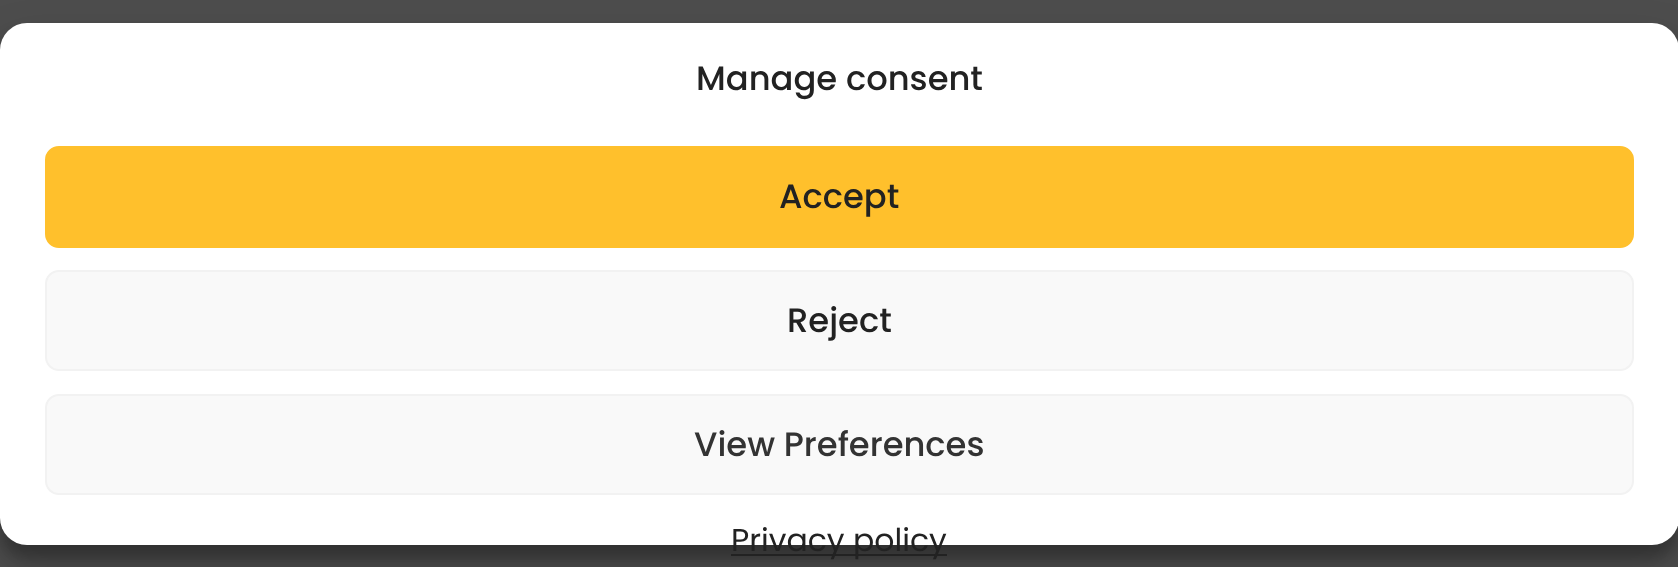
<!DOCTYPE html>
<meta charset="utf-8">
<style>body { margin: 0 } canvas { display: block }</style>
<canvas id="canvas" width="1678" height="567"></canvas>
<script type="module">
  const canvas = document.getElementById("canvas");
  const g = canvas.getContext("2d");
  g.miterLimit = 4;
  g.fontKerning = "normal";
  function drawText(s, x, y, [font, color]) {
    g.font = font;
    g.fillStyle = color;
    g.fillText(s, x, y);
  }
  function fillBox(x, y, w, h, color) {
    g.fillStyle = color;
    g.fillRect(x, y, w, h);
  }
  function fillRounded(x, y, w, h, r, color) {
    g.fillStyle = color;
    g.beginPath();
    g.roundRect(x, y, w, h, r);
    g.fill();
  }

  const s1 = ["500 33.75px Poppins", "#222222"];
  const s2 = ["500 33.75px Poppins", "#333333"];
  const s3 = ["31.5px Poppins", "#222222"];

  fillBox(0, 0, 1678, 567, "#4D4D4D");
  g.fillStyle = "rgba(0, 0, 0, 0.23)";
  g.filter = "blur(7px)";
  g.beginPath();
  g.roundRect(0, 36, 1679, 522, 27);
  g.fill();
  g.filter = "none";
  g.fillStyle = "rgba(0, 0, 0, 0.19)";
  g.filter = "blur(22.5px)";
  g.beginPath();
  g.roundRect(0, 45, 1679, 522, 27);
  g.fill();
  g.filter = "none";
  fillRounded(0, 23, 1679, 522, 27, "#FFFFFF");
  drawText("Manage consent", 696, 90, s1);
  g.fillStyle = "#FFC02C";
  g.beginPath();
  g.roundRect(46, 147, 1587, 100, 13);
  g.fill();
  g.strokeStyle = "#FFC02C";
  g.lineWidth = 2;
  g.stroke();
  drawText("Accept", 779, 208, s1);
  g.fillStyle = "#F9F9F9";
  g.beginPath();
  g.roundRect(46, 271, 1587, 99, 13);
  g.fill();
  g.strokeStyle = "#F2F2F2";
  g.stroke();
  drawText("Reject", 787, 332, s1);
  g.fillStyle = "#F9F9F9";
  g.beginPath();
  g.roundRect(46, 395, 1587, 99, 13);
  g.fill();
  g.stroke();
  drawText("View Preferences", 694, 456, s2);
  fillBox(731, 554, 216, 2, "#222222");
  drawText("Privacy policy", 731, 551, s3);
</script>
